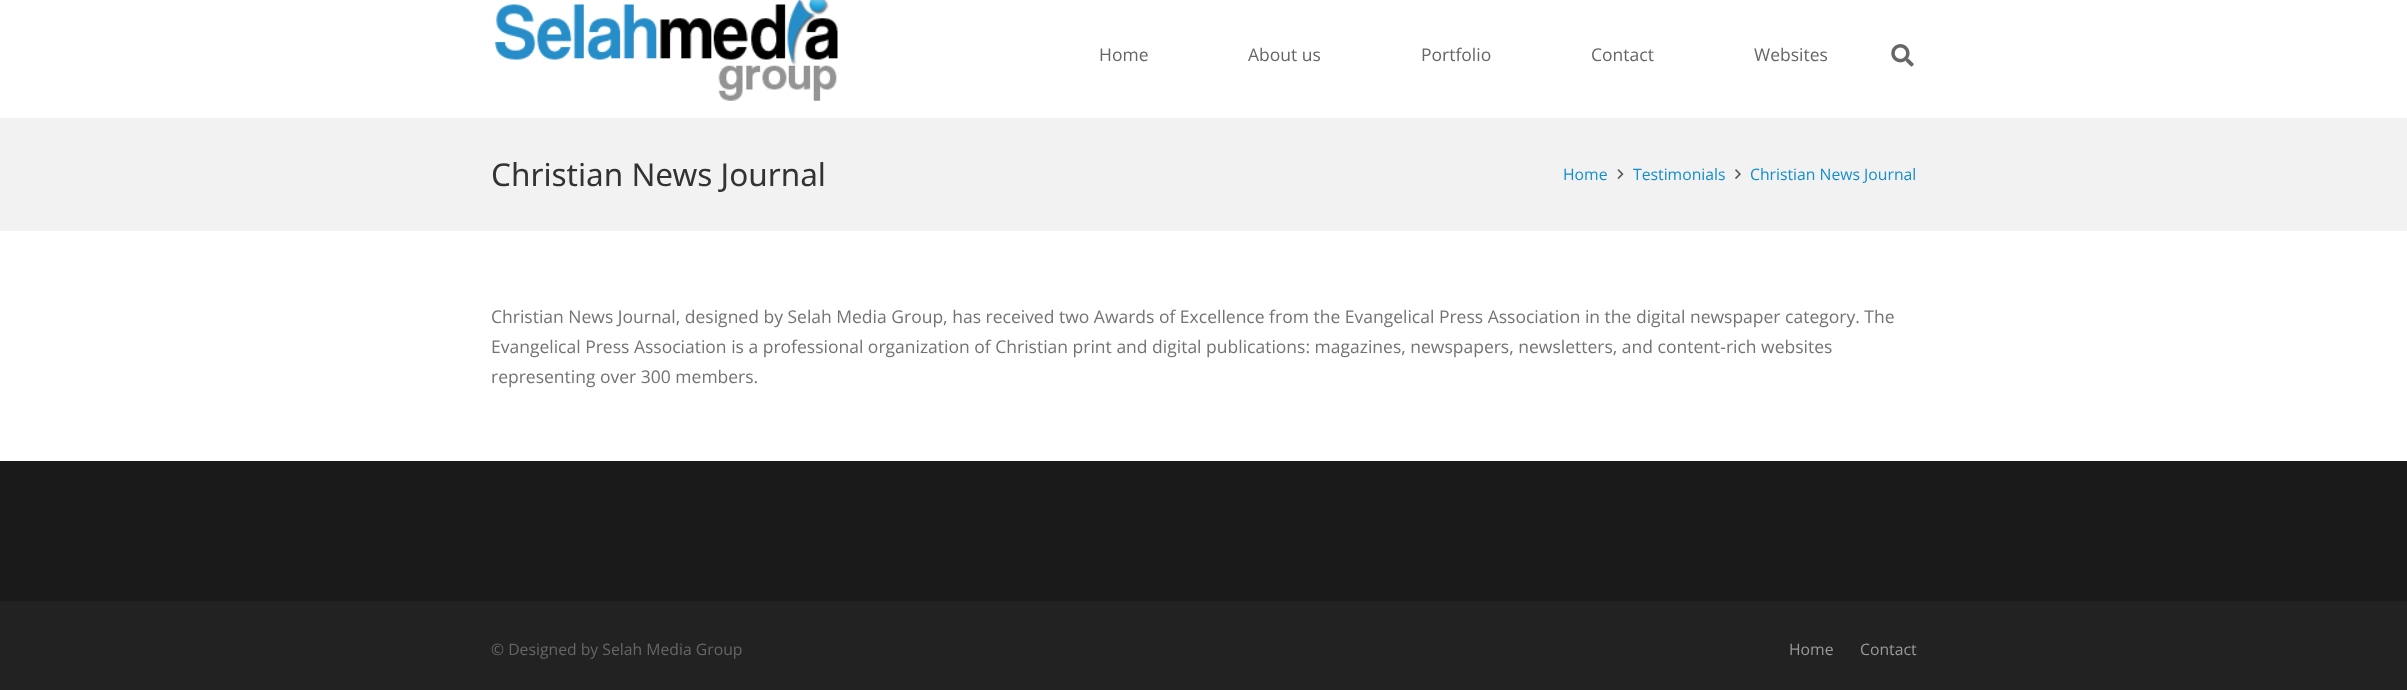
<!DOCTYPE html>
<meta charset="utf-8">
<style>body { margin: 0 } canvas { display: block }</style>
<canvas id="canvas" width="2407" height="690"></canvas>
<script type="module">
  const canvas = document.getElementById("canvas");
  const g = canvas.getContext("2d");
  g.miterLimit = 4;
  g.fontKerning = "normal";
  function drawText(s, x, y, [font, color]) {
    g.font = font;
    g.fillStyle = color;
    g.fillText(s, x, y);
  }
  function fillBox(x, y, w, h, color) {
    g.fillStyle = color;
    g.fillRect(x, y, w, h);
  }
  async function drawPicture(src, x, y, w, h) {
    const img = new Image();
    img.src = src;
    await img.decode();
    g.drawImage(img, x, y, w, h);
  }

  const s1 = ["17.5px Open Sans", "#666666"];
  const s2 = ["31.5px Noto Sans", "#333333"];
  const s3 = ["15.75px Open Sans", "#148DCE"];
  const s4 = ["17.5px Open Sans", "#747373"];
  const s5 = ["15.75px Open Sans", "#666666"];
  const s6 = ["15.75px Open Sans", "#999999"];

  fillBox(0, 0, 2407, 690, "#FFFFFF");
  await drawPicture("pic1.png", 494, 0, 344, 101);
  drawText("Home", 1099, 61, s1);
  drawText("About us", 1248, 61, s1);
  drawText("Portfolio", 1421, 61, s1);
  drawText("Contact", 1591, 61, s1);
  drawText("Websites", 1754, 61, s1);
  await drawPicture("pic2.png", 1891, 44, 23, 23);
  fillBox(0, 118, 2407, 113, "#F2F2F2");
  drawText("Christian News Journal", 491, 186, s2);
  drawText("Home", 1563, 180, s3);
  await drawPicture("pic3.png", 1617, 169, 7, 10);
  drawText("Testimonials", 1633, 180, s3);
  await drawPicture("pic4.png", 1735, 169, 6, 10);
  drawText("Christian News Journal", 1750, 180, s3);
  drawText("Christian News Journal, designed by Selah Media Group, has received two Awards of Excellence from the Evangelical Press Association in the digital newspaper category. The", 491, 323, s4);
  drawText("Evangelical Press Association is a professional organization of Christian print and digital publications: magazines, newspapers, newsletters, and content-rich websites", 491, 353, s4);
  drawText("representing over 300 members.", 491, 383, s4);
  fillBox(0, 461, 2407, 140, "#1A1A1A");
  fillBox(0, 601, 2407, 89, "#222222");
  drawText("© Designed by Selah Media Group", 491, 655, s5);
  drawText("Home", 1789, 655, s6);
  drawText("Contact", 1860, 655, s6);
</script>
